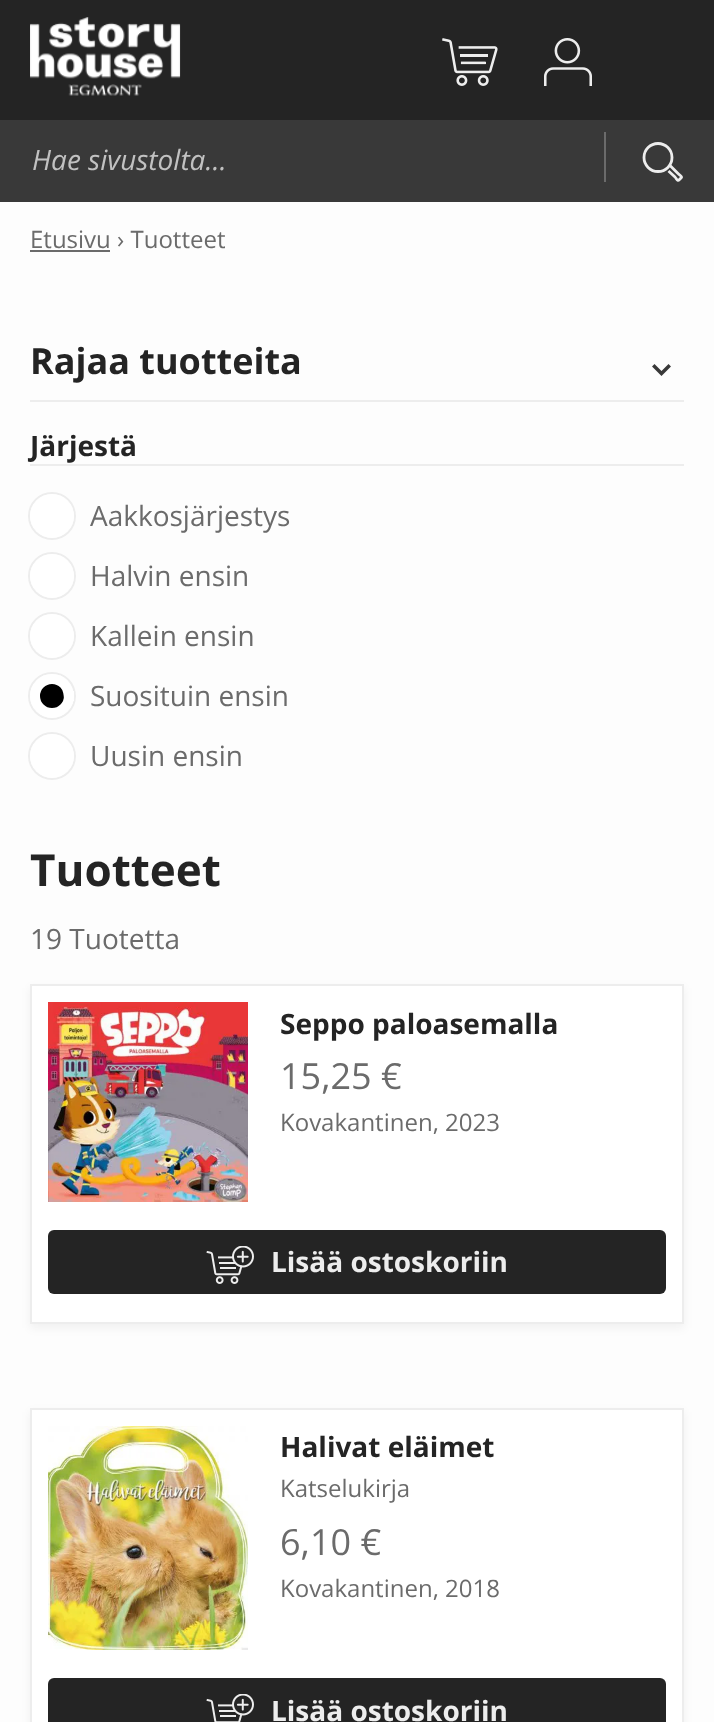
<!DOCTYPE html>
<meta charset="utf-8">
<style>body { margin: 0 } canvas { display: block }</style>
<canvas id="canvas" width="714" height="1722"></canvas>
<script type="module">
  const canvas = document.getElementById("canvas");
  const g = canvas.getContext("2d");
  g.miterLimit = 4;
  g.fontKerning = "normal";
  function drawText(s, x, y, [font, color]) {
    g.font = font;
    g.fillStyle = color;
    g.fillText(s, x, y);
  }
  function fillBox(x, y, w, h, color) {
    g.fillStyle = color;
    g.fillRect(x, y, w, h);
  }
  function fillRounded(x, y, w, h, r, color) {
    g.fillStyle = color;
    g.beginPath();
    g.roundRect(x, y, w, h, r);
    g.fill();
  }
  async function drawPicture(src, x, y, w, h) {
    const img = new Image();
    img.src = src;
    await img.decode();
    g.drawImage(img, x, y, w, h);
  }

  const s1 = ["italic 28px Open Sans", "#C1C1C1"];
  const s2 = ["24px Open Sans", "#6B6B6B"];
  const s3 = ["bold 36px Open Sans", "#242424"];
  const s4 = ["bold 28px Open Sans", "#242424"];
  const s5 = ["28px Open Sans", "#6B6B6B"];
  const s6 = ["bold 44px Open Sans", "#242424"];
  const s7 = ["36px Open Sans", "#6B6B6B"];
  const s8 = ["bold 28px Open Sans", "#EDEDED"];

  fillBox(0, 0, 714, 1722, "#FDFDFD");
  fillBox(0, 0, 714, 120, "#242424");
  await drawPicture("pic1.png", 30, 17, 151, 79);
  await drawPicture("pic2.png", 442, 38, 56, 48);
  await drawPicture("pic3.png", 544, 38, 48, 48);
  fillBox(0, 120, 714, 82, "#393939");
  fillBox(604, 132, 2, 50, "#6B6B6B");
  drawText("Hae sivustolta…", 32, 170, s1);
  g.beginPath();
  g.moveTo(669.5, 165);
  g.lineTo(677.5, 173);
  g.bezierCurveTo(682, 177.5, 683, 176, 679.5, 179.5);
  g.bezierCurveTo(677.5, 181.5, 677, 179.5, 675, 177);
  g.lineTo(668.5, 171);
  g.strokeStyle = "#EDEDED";
  g.lineWidth = 2.8;
  g.lineJoin = "round";
  g.stroke();
  g.beginPath();
  g.arc(658, 157.5, 14, 0, Math.PI * 2);
  g.stroke();
  drawText("Etusivu › Tuotteet", 30, 248, s2);
  fillBox(30, 250, 80, 2, "#6B6B6B");
  fillBox(30, 400, 654, 2, "#EDEDED");
  drawText("Rajaa tuotteita", 30, 374, s3);
  g.beginPath();
  g.moveTo(668.5, 366.5);
  g.lineTo(661.5, 373.5);
  g.lineTo(654.5, 366.5);
  g.strokeStyle = "#393939";
  g.lineWidth = 3.5;
  g.lineCap = "square";
  g.lineJoin = "miter";
  g.stroke();
  fillBox(30, 464, 654, 2, "#EDEDED");
  drawText("Järjestä", 30, 456, s4);
  g.beginPath();
  g.arc(52, 516, 23, 0, Math.PI * 2);
  g.strokeStyle = "#EDEDED";
  g.lineWidth = 2;
  g.stroke();
  g.fillStyle = "#FFFFFF";
  g.beginPath();
  g.arc(52, 516, 22, 0, Math.PI * 2);
  g.fill();
  drawText("Aakkosjärjestys", 90, 526, s5);
  g.beginPath();
  g.arc(52, 576, 23, 0, Math.PI * 2);
  g.stroke();
  g.fillStyle = "#FFFFFF";
  g.beginPath();
  g.arc(52, 576, 22, 0, Math.PI * 2);
  g.fill();
  drawText("Halvin ensin", 90, 586, s5);
  g.beginPath();
  g.arc(52, 636, 23, 0, Math.PI * 2);
  g.stroke();
  g.fillStyle = "#FFFFFF";
  g.beginPath();
  g.arc(52, 636, 22, 0, Math.PI * 2);
  g.fill();
  drawText("Kallein ensin", 90, 646, s5);
  g.beginPath();
  g.arc(52, 696, 23, 0, Math.PI * 2);
  g.stroke();
  g.fillStyle = "#000000";
  g.beginPath();
  g.arc(52, 696, 17, 0, Math.PI * 2);
  g.fill();
  g.strokeStyle = "#FFFFFF";
  g.lineWidth = 10;
  g.stroke();
  drawText("Suosituin ensin", 90, 706, s5);
  g.beginPath();
  g.arc(52, 756, 23, 0, Math.PI * 2);
  g.strokeStyle = "#EDEDED";
  g.lineWidth = 2;
  g.stroke();
  g.fillStyle = "#FFFFFF";
  g.beginPath();
  g.arc(52, 756, 22, 0, Math.PI * 2);
  g.fill();
  drawText("Uusin ensin", 90, 766, s5);
  drawText("Tuotteet", 30, 886, s6);
  drawText("19 Tuotetta", 30, 949, s5);
  g.fillStyle = "rgba(0, 0, 0, 0.05)";
  g.filter = "blur(5px)";
  g.beginPath();
  g.rect(30, 988, 654, 340);
  g.fill();
  g.filter = "none";
  g.fillStyle = "#FFFFFF";
  g.beginPath();
  g.rect(31, 985, 652, 338);
  g.fill();
  g.stroke();
  await drawPicture("pic4.png", 48, 1002, 200, 200);
  drawText("Seppo paloasemalla", 280, 1034, s4);
  drawText("15,25 €", 280, 1089, s7);
  drawText("Kovakantinen, 2023", 280, 1131, s2);
  fillRounded(48, 1230, 618, 64, 6, "#242424");
  await drawPicture("pic5.png", 206, 1246, 48, 38);
  drawText("Lisää ostoskoriin", 271, 1272, s8);
  g.fillStyle = "rgba(0, 0, 0, 0.05)";
  g.filter = "blur(5px)";
  g.beginPath();
  g.rect(30, 1412, 654, 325);
  g.fill();
  g.filter = "none";
  g.fillStyle = "#FFFFFF";
  g.beginPath();
  g.rect(31, 1409, 652, 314);
  g.fill();
  g.stroke();
  await drawPicture("pic6.png", 48, 1426, 200, 224);
  drawText("Halivat eläimet", 280, 1457, s4);
  drawText("Katselukirja", 280, 1497, s2);
  drawText("6,10 €", 280, 1555, s7);
  drawText("Kovakantinen, 2018", 280, 1597, s2);
  fillRounded(48, 1678, 618, 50, 6, "#242424");
  await drawPicture("pic7.png", 206, 1694, 48, 28);
  drawText("Lisää ostoskoriin", 271, 1721, s8);
</script>
